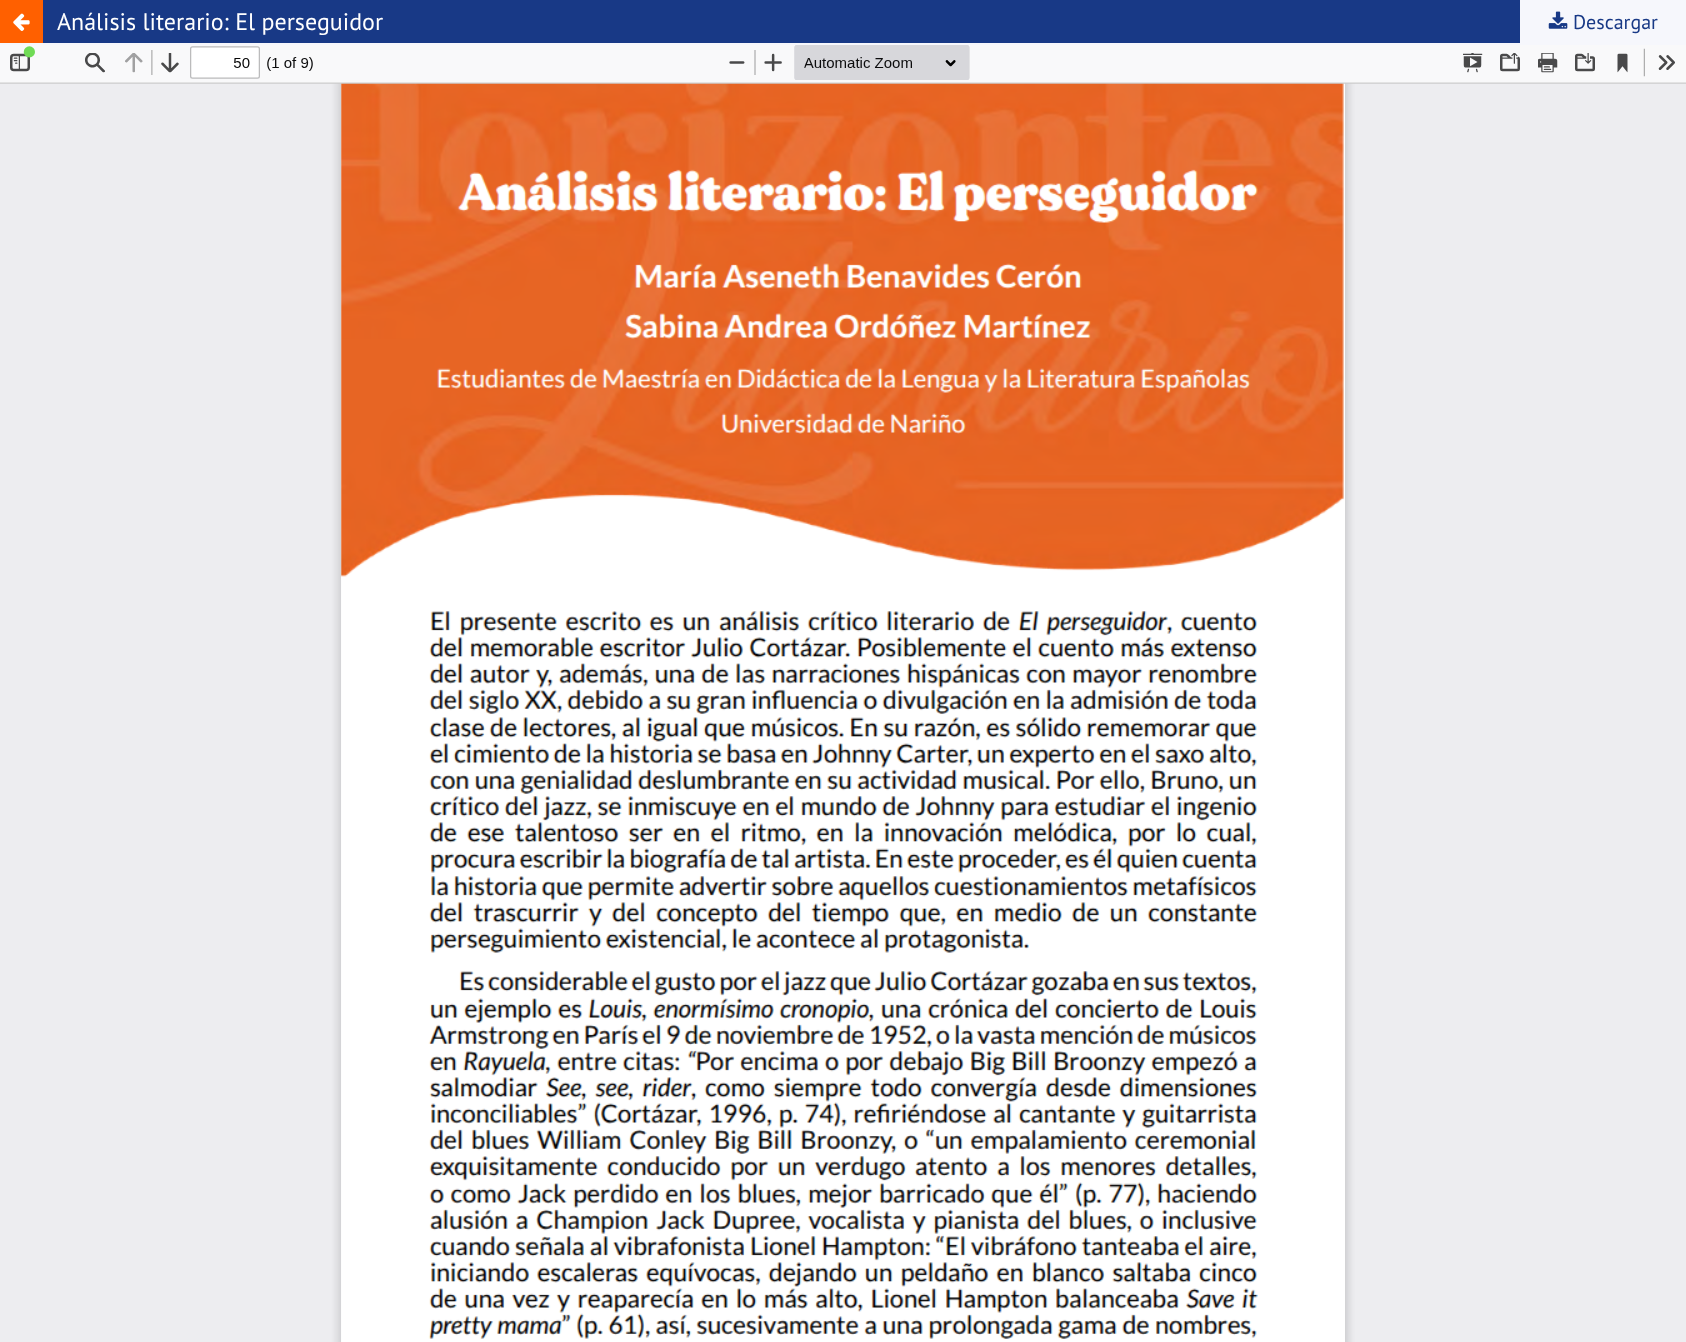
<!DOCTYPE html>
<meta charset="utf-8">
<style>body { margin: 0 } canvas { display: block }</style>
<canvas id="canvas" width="1686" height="1342"></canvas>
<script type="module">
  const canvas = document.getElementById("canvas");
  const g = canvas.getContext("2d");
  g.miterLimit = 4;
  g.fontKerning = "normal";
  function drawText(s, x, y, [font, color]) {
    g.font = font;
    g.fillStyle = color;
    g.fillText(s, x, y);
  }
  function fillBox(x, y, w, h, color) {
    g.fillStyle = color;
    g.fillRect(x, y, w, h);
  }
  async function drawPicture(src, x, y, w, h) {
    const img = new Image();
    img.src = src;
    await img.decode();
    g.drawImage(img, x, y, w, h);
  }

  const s1 = ["24px PT Sans", "#FFFFFF"];
  const s2 = ["20px PT Sans", "#183986"];

  fillBox(0, 0, 1686, 1342, "#F6F7FC");
  fillBox(43, 0, 1477, 43, "#183986");
  fillBox(0, 0, 43, 43, "#FF6000");
  await drawPicture("pic1.png", 13, 13, 17, 18);
  drawText("Análisis literario: El perseguidor", 57, 30, s1);
  await drawPicture("pic2.png", 1548, 11, 20, 18);
  drawText("Descargar", 1573, 29, s2);
  await drawPicture("pic3.png", 0, 45, 1686, 1297);
</script>
